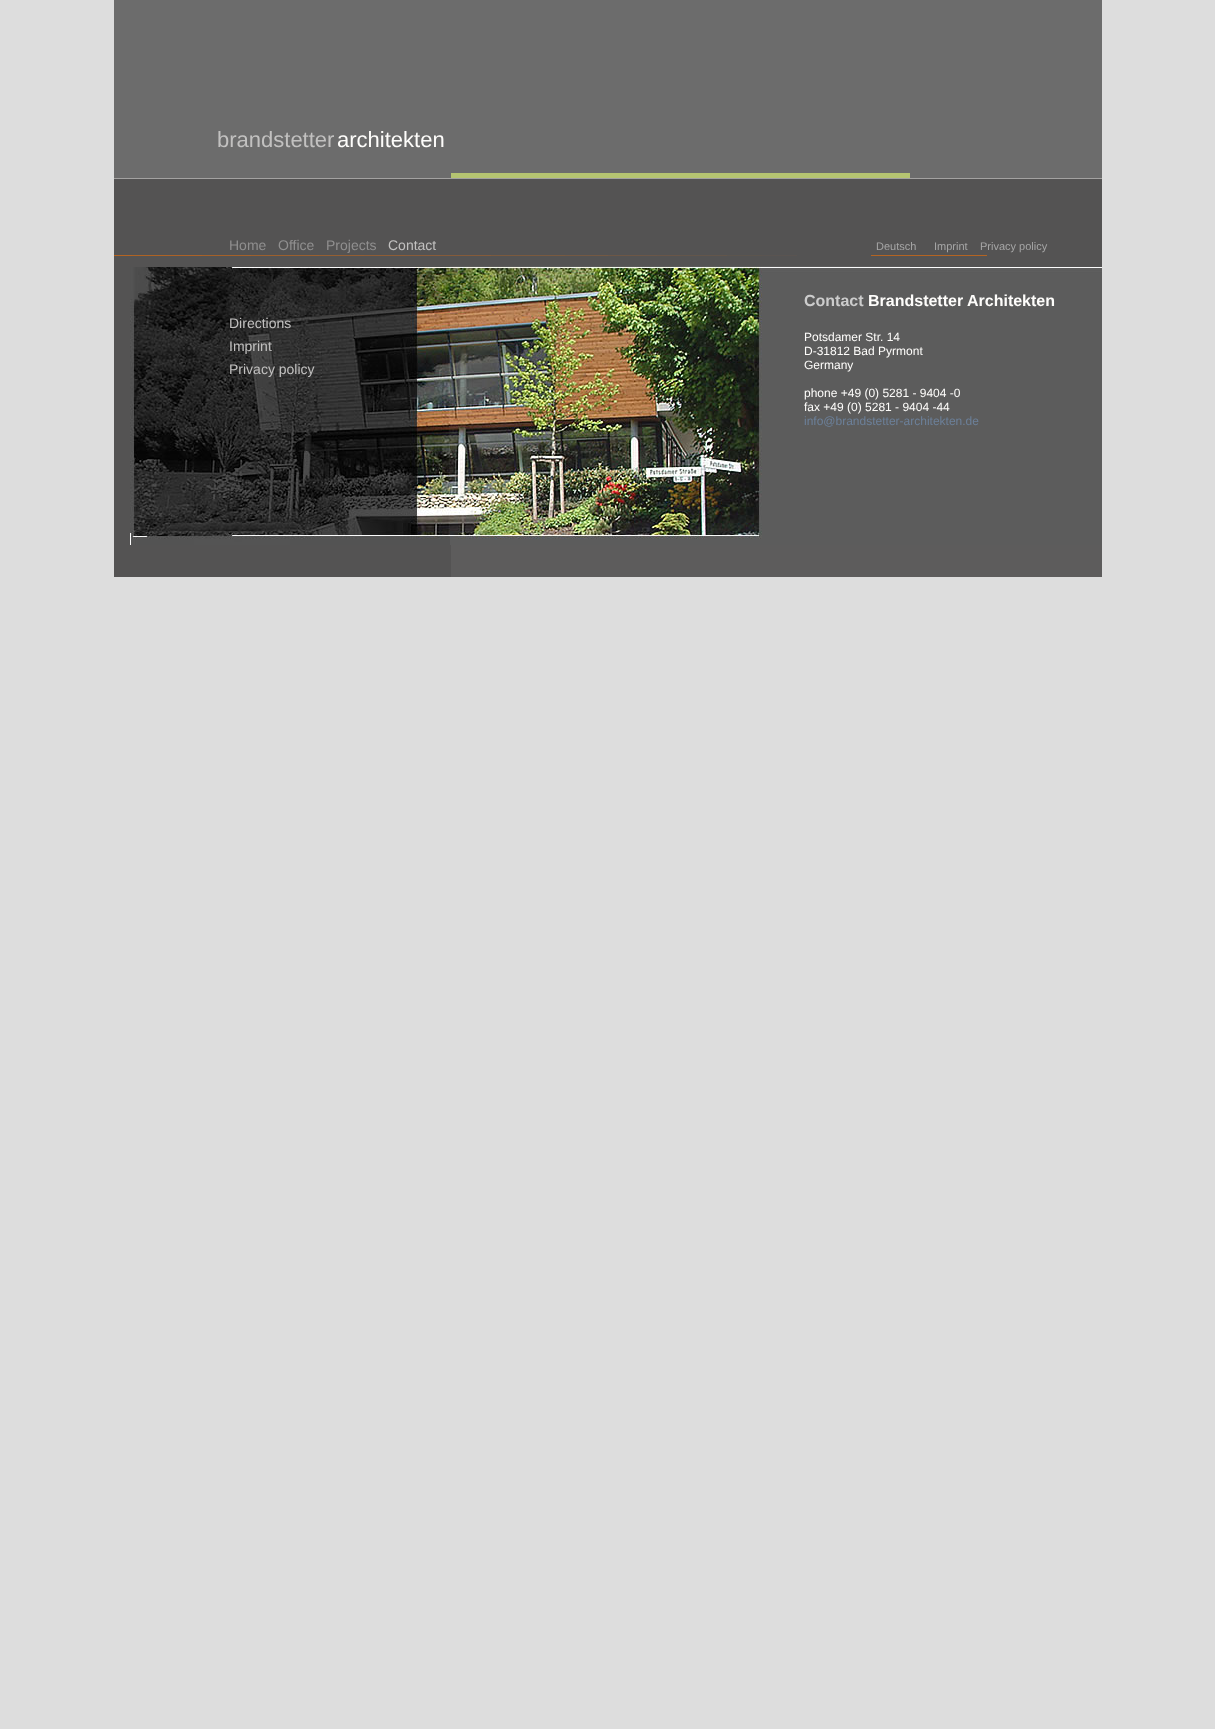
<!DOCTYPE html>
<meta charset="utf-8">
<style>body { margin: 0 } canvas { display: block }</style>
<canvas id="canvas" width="1215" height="1729"></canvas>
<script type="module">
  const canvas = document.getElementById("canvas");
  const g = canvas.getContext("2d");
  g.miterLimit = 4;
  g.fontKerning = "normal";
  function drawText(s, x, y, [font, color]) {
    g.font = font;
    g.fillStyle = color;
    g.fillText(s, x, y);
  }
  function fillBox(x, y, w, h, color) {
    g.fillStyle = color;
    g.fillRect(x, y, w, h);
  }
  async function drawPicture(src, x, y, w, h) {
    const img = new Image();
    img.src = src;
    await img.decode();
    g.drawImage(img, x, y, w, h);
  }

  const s1 = ["22px Liberation Sans", "#C2C1C0"];
  const s2 = ["22px Liberation Sans", "#FEFDFB"];
  const s3 = ["14px Liberation Sans", "#908F8F"];
  const s4 = ["14px Liberation Sans", "#C2C1C0"];
  const s5 = ["11px Liberation Sans", "#A6A6A6"];
  const s6 = ["bold 16px Liberation Sans", "#CCCCCC"];
  const s7 = ["bold 16px Liberation Sans", "#FEFDFB"];
  const s8 = ["12px Liberation Sans", "#FEFDFB"];
  const s9 = ["12px Liberation Sans", "#6C809A"];

  fillBox(0, 0, 1215, 1729, "#DDDDDD");
  await drawPicture("pic1.png", 114, 267, 988, 310);
  await drawPicture("pic2.png", 114, 0, 988, 267);
  drawText("brandstetter", 217, 147, s1);
  drawText("architekten", 337, 147, s2);
  drawText("Home", 229, 250, s3);
  drawText("Office", 278, 250, s3);
  drawText("Projects", 326, 250, s3);
  drawText("Contact", 388, 250, s4);
  drawText("Deutsch", 876, 250, s5);
  drawText("Imprint", 934, 250, s5);
  drawText("Privacy policy", 980, 250, s5);
  await drawPicture("pic3.png", 130, 267, 972, 278);
  drawText("Directions", 229, 328, s4);
  drawText("Imprint", 229, 351, s4);
  drawText("Privacy policy", 229, 374, s4);
  drawText("Contact", 804, 306, s6);
  drawText("Brandstetter Architekten", 868, 306, s7);
  drawText("Potsdamer Str. 14", 804, 341, s8);
  drawText("D-31812 Bad Pyrmont", 804, 355, s8);
  drawText("Germany", 804, 369, s8);
  drawText("phone +49 (0) 5281 - 9404 -0", 804, 397, s8);
  drawText("fax +49 (0) 5281 - 9404 -44", 804, 411, s8);
  drawText("info@brandstetter-architekten.de", 804, 425, s9);
</script>
